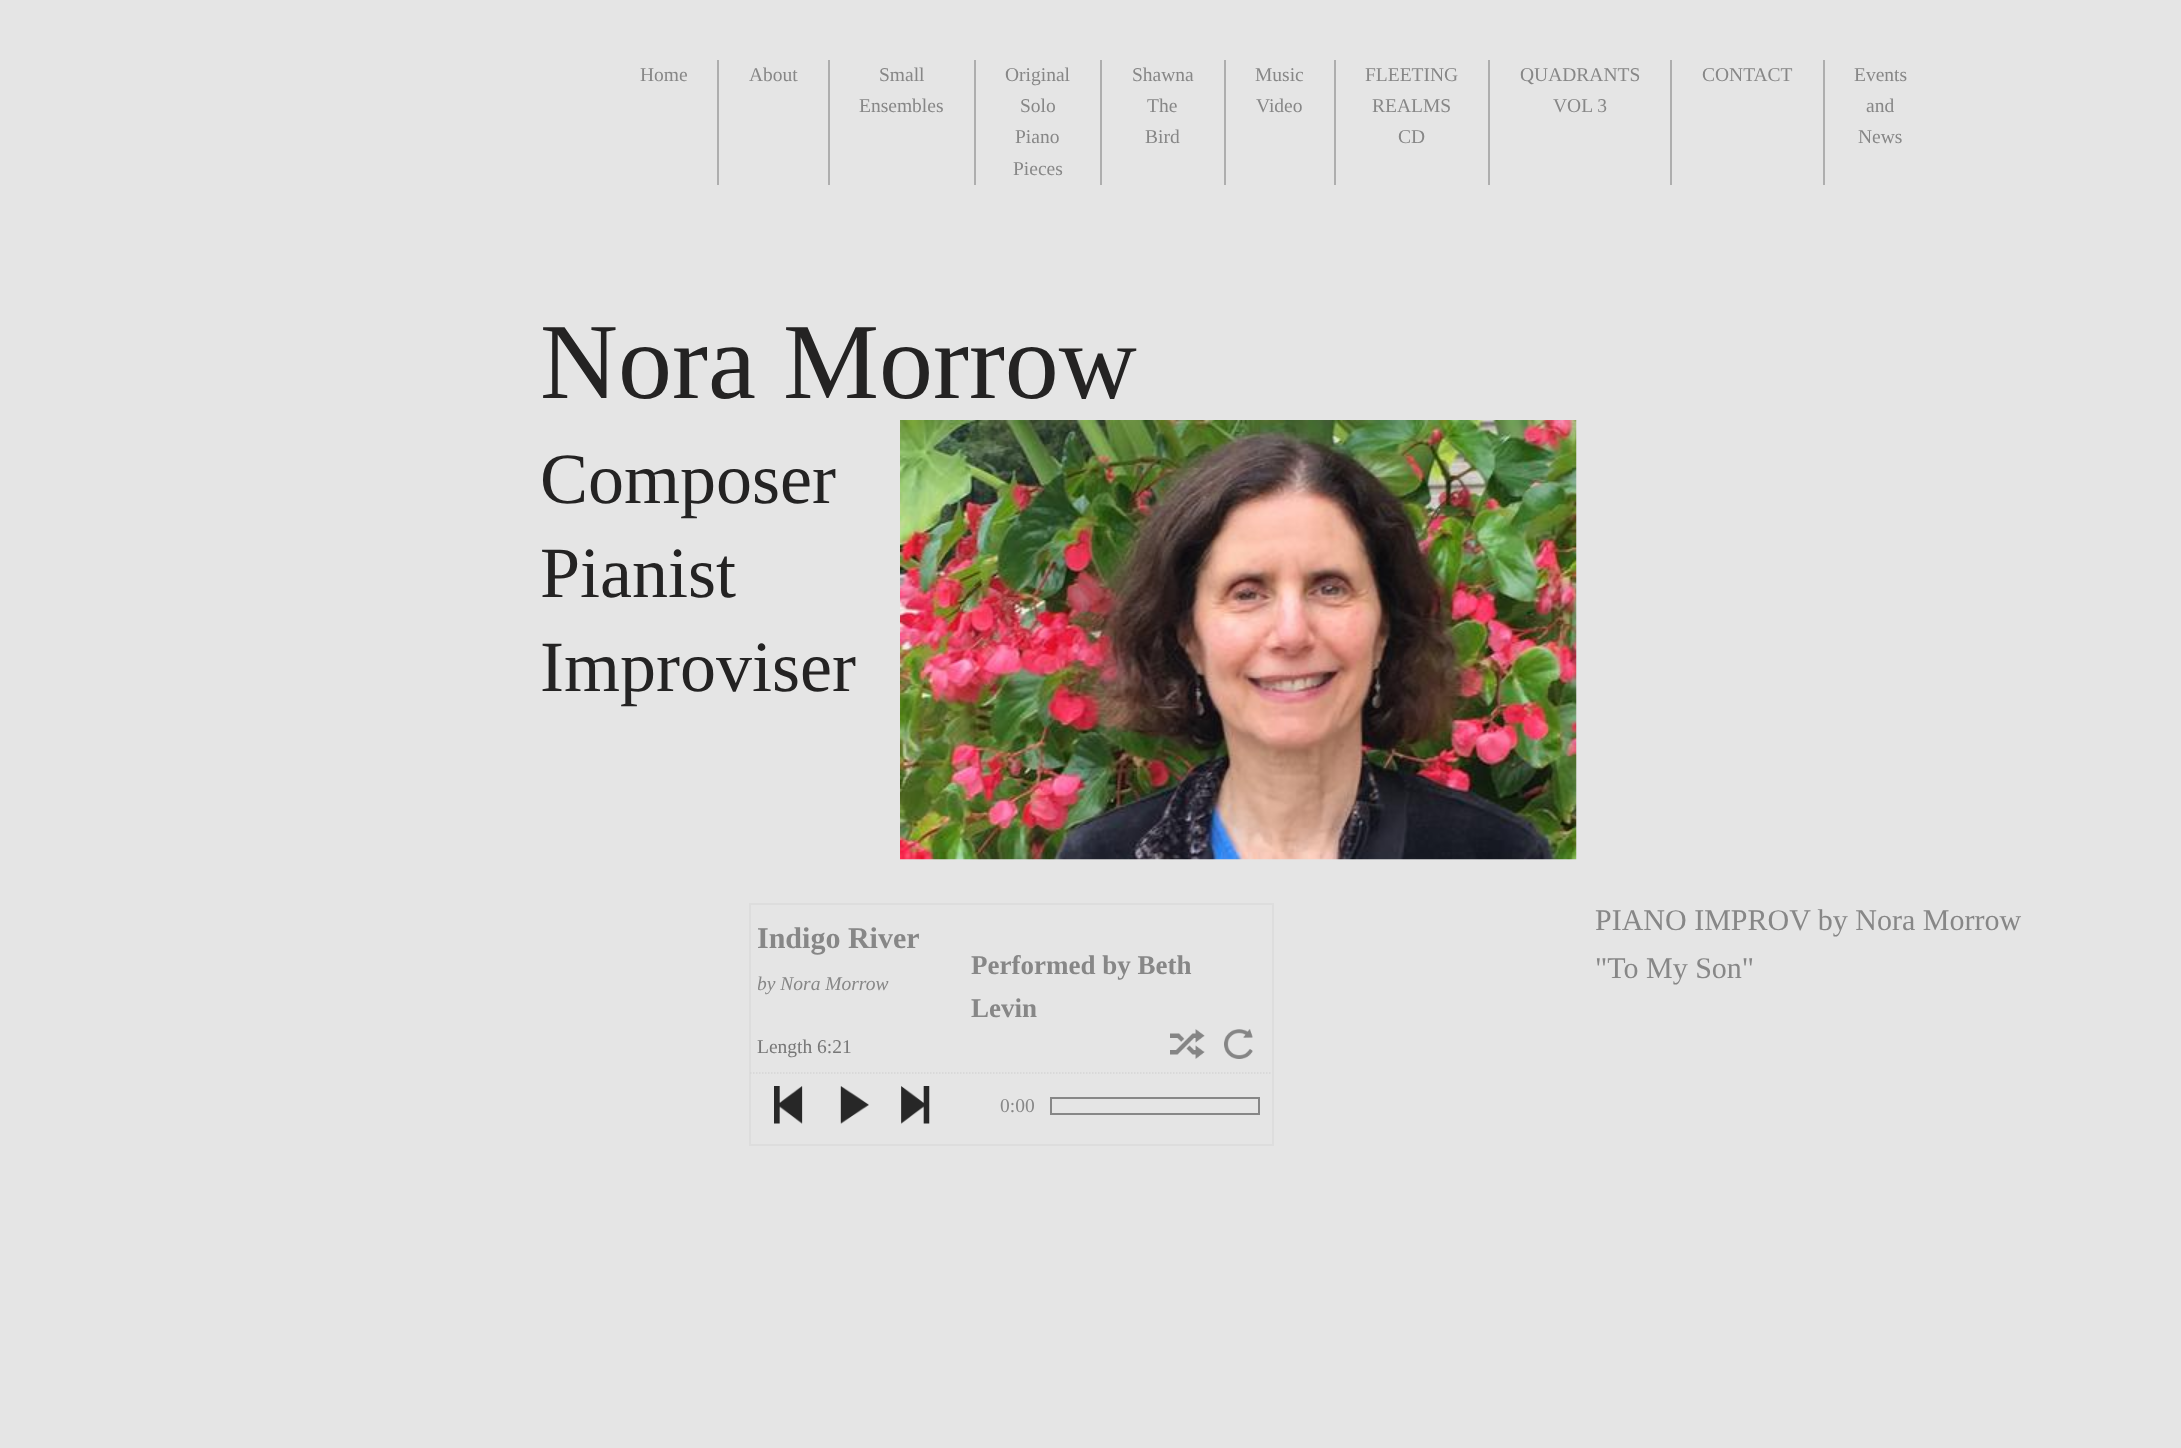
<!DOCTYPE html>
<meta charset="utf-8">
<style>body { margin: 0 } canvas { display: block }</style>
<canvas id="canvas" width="2181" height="1448"></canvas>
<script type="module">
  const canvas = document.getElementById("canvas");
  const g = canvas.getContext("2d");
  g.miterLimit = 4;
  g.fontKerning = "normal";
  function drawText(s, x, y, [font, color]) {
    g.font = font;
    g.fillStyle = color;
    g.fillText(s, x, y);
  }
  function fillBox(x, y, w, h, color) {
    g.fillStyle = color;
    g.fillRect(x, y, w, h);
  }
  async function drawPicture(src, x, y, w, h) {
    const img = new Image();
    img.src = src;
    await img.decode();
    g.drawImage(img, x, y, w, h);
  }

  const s1 = ["19.5px Liberation Serif", "#878787"];
  const s2 = ["108px Liberation Serif", "#242323"];
  const s3 = ["72px Liberation Serif", "#242323"];
  const s4 = ["bold 30px Liberation Serif", "#878787"];
  const s5 = ["italic 19.5px Liberation Serif", "#878787"];
  const s6 = ["19.5px Liberation Serif", "#777777"];
  const s7 = ["bold 27px Liberation Serif", "#878787"];
  const s8 = ["30px Liberation Serif", "#878787"];

  fillBox(0, 0, 2181, 1448, "#E5E5E5");
  fillBox(717, 60, 2, 125, "#AEAEAE");
  drawText("Home", 640, 81, s1);
  fillBox(828, 60, 2, 125, "#AEAEAE");
  drawText("About", 749, 81, s1);
  fillBox(974, 60, 2, 125, "#AEAEAE");
  drawText("Small", 879, 81, s1);
  drawText("Ensembles", 859, 112, s1);
  fillBox(1100, 60, 2, 125, "#AEAEAE");
  drawText("Original", 1005, 81, s1);
  drawText("Solo", 1020, 112, s1);
  drawText("Piano", 1015, 143, s1);
  drawText("Pieces", 1013, 175, s1);
  fillBox(1224, 60, 2, 125, "#AEAEAE");
  drawText("Shawna", 1132, 81, s1);
  drawText("The", 1147, 112, s1);
  drawText("Bird", 1145, 143, s1);
  fillBox(1334, 60, 2, 125, "#AEAEAE");
  drawText("Music", 1255, 81, s1);
  drawText("Video", 1256, 112, s1);
  fillBox(1488, 60, 2, 125, "#AEAEAE");
  drawText("FLEETING", 1365, 81, s1);
  drawText("REALMS", 1372, 112, s1);
  drawText("CD", 1398, 143, s1);
  fillBox(1670, 60, 2, 125, "#AEAEAE");
  drawText("QUADRANTS", 1520, 81, s1);
  drawText("VOL 3", 1553, 112, s1);
  fillBox(1823, 60, 2, 125, "#AEAEAE");
  drawText("CONTACT", 1702, 81, s1);
  drawText("Events", 1854, 81, s1);
  drawText("and", 1866, 112, s1);
  drawText("News", 1858, 143, s1);
  drawText("Nora Morrow", 540, 398, s2);
  drawText("Composer", 540, 503, s3);
  drawText("Pianist", 540, 597, s3);
  drawText("Improviser", 540, 691, s3);
  await drawPicture("pic1.png", 900, 420, 677, 440);
  g.strokeStyle = "#DDDDDD";
  g.lineWidth = 2;
  g.strokeRect(750, 904, 523, 241);
  g.save();
  g.beginPath();
  g.rect(758, 914, 507, 48);
  g.clip();
  drawText("Indigo River", 757, 948, s4);
  g.restore();
  g.save();
  g.beginPath();
  g.rect(758, 969, 507, 32);
  g.clip();
  drawText("by Nora Morrow", 757, 990, s5);
  g.restore();
  drawText("Length 6:21", 757, 1053, s6);
  await drawPicture("pic2.png", 1170, 1029, 35, 30);
  await drawPicture("pic3.png", 1224, 1029, 29, 30);
  g.beginPath();
  g.moveTo(750, 1073);
  g.lineTo(1272, 1073);
  g.strokeStyle = "#D5D5D5";
  g.lineWidth = 1.5;
  g.setLineDash([1.5, 1.5]);
  g.stroke();
  await drawPicture("pic4.png", 774, 1086, 29, 38);
  await drawPicture("pic5.png", 840, 1086, 29, 38);
  await drawPicture("pic6.png", 901, 1086, 29, 38);
  drawText("0:00", 1000, 1112, s1);
  g.strokeStyle = "#878787";
  g.lineWidth = 2;
  g.setLineDash([]);
  g.strokeRect(1051, 1098, 208, 16);
  drawText("Performed by Beth", 971, 974, s7);
  drawText("Levin", 971, 1017, s7);
  drawText("PIANO IMPROV by Nora Morrow", 1595, 930, s8);
  drawText("\"To My Son\"", 1595, 978, s8);
</script>
